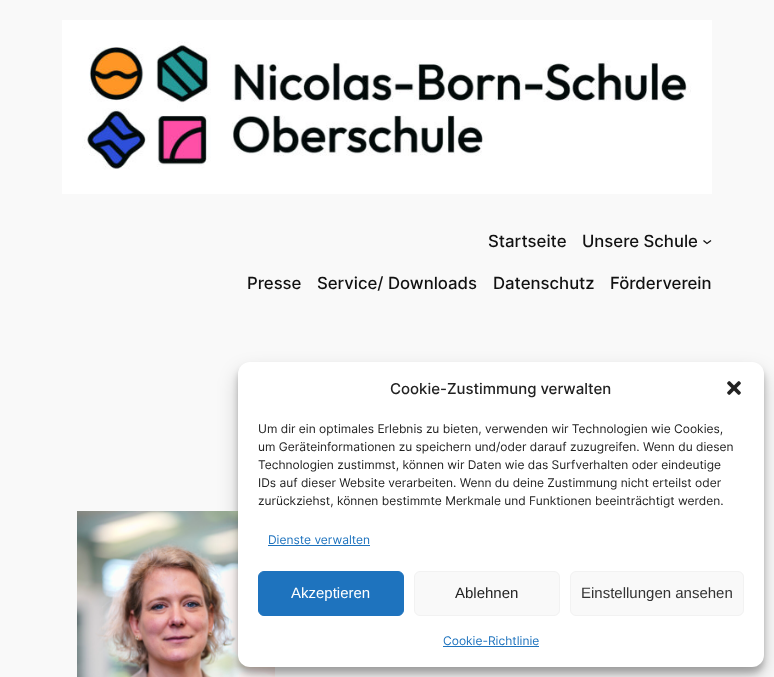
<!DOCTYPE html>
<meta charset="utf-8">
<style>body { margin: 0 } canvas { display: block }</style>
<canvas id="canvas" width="774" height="677"></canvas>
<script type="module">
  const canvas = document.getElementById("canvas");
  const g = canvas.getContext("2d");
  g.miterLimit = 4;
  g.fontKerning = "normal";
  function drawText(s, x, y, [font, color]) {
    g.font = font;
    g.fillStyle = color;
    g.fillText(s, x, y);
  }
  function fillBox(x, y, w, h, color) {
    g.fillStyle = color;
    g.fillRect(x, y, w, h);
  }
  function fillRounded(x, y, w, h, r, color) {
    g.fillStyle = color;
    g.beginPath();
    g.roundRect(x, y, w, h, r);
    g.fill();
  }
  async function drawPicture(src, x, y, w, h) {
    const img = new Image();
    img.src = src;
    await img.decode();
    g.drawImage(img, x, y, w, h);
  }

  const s1 = ["500 16.75px Inter", "#111111"];
  const s2 = ["500 15px Inter", "#222222"];
  const s3 = ["12px Inter", "#222222"];
  const s4 = ["12px Inter", "#1E73BE"];
  const s5 = ["15px Liberation Sans", "#FFFFFF"];
  const s6 = ["15px Liberation Sans", "#222222"];
  const s7 = ["15px Liberation Sans", "#333333"];

  fillBox(0, 0, 774, 677, "#F9F9F9");
  await drawPicture("pic1.png", 62, 20, 650, 174);
  drawText("Startseite", 488, 247, s1);
  drawText("Unsere Schule", 582, 247, s1);
  g.beginPath();
  g.moveTo(703.5, 240.5);
  g.lineTo(707, 243.5);
  g.lineTo(711, 240.5);
  g.strokeStyle = "#111111";
  g.lineWidth = 1.3;
  g.stroke();
  drawText("Presse", 247, 289, s1);
  drawText("Service/ Downloads", 317, 289, s1);
  drawText("Datenschutz", 493, 289, s1);
  drawText("Förderverein", 610, 289, s1);
  await drawPicture("pic2.png", 77, 511, 198, 166);
  g.fillStyle = "rgba(0, 0, 0, 0.23)";
  g.filter = "blur(3px)";
  g.beginPath();
  g.roundRect(238, 368, 526, 305, 12);
  g.fill();
  g.filter = "none";
  g.fillStyle = "rgba(0, 0, 0, 0.19)";
  g.filter = "blur(10px)";
  g.beginPath();
  g.roundRect(238, 372, 526, 305, 12);
  g.fill();
  g.filter = "none";
  fillRounded(238, 362, 526, 305, 12, "#FFFFFF");
  drawText("Cookie-Zustimmung verwalten", 390, 394, s2);
  await drawPicture("pic3.png", 727, 381, 14, 14);
  drawText("Um dir ein optimales Erlebnis zu bieten, verwenden wir Technologien wie Cookies,", 258, 433, s3);
  drawText("um Geräteinformationen zu speichern und/oder darauf zuzugreifen. Wenn du diesen", 258, 451, s3);
  drawText("Technologien zustimmst, können wir Daten wie das Surfverhalten oder eindeutige", 258, 469, s3);
  drawText("IDs auf dieser Website verarbeiten. Wenn du deine Zustimmung nicht erteilst oder", 258, 487, s3);
  drawText("zurückziehst, können bestimmte Merkmale und Funktionen beeinträchtigt werden.", 258, 505, s3);
  drawText("Dienste verwalten", 268, 544, s4);
  fillBox(268, 545, 102, 1, "#1E73BE");
  g.beginPath();
  g.roundRect(258.5, 571.5, 145, 44, 5.5);
  g.fill();
  g.strokeStyle = "#1E73BE";
  g.lineWidth = 1;
  g.stroke();
  drawText("Akzeptieren", 291, 598, s5);
  g.fillStyle = "#F9F9F9";
  g.beginPath();
  g.roundRect(414.5, 571.5, 145, 44, 5.5);
  g.fill();
  g.strokeStyle = "#F2F2F2";
  g.stroke();
  drawText("Ablehnen", 455, 598, s6);
  g.fillStyle = "#F9F9F9";
  g.beginPath();
  g.roundRect(570.5, 571.5, 173, 44, 5.5);
  g.fill();
  g.stroke();
  drawText("Einstellungen ansehen", 581, 598, s7);
  drawText("Cookie-Richtlinie", 443, 645, s4);
  fillBox(443, 646, 96, 1, "#1E73BE");
</script>
